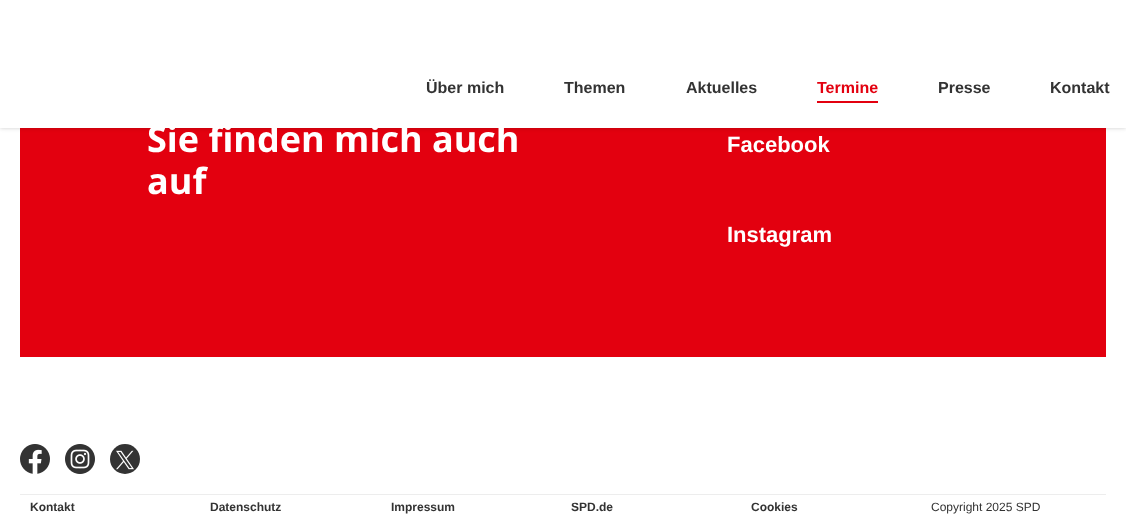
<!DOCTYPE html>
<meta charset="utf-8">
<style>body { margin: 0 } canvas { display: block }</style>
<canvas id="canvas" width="1126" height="519"></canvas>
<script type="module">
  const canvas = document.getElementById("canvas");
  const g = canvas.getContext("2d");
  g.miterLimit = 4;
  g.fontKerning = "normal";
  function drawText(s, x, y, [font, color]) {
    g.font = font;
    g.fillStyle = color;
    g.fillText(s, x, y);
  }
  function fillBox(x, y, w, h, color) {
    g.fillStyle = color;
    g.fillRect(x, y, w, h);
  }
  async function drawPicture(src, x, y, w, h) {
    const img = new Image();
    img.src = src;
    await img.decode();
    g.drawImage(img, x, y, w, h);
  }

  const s1 = ["bold 16px Liberation Sans", "#333333"];
  const s2 = ["bold 16px Liberation Sans", "#E3000F"];
  const s3 = ["bold 36px Open Sans", "#FFFFFF"];
  const s4 = ["bold 22px Liberation Sans", "#FFFFFF"];
  const s5 = ["bold 12px Liberation Sans", "#333333"];
  const s6 = ["12px Liberation Sans", "#333333"];

  fillBox(0, 0, 1126, 519, "#FFFFFF");
  fillBox(20, 128, 1086, 229, "#E3000F");
  g.fillStyle = "rgba(0, 0, 0, 0.2)";
  g.filter = "blur(2px)";
  g.beginPath();
  g.rect(0, 0, 1126, 128);
  g.fill();
  g.filter = "none";
  fillBox(0, 0, 1126, 128, "#FFFFFF");
  drawText("Über mich", 426, 93, s1);
  drawText("Themen", 564, 93, s1);
  drawText("Aktuelles", 686, 93, s1);
  fillBox(817, 101, 61, 2, "#E3000F");
  drawText("Termine", 817, 93, s2);
  drawText("Presse", 938, 93, s1);
  drawText("Kontakt", 1050, 93, s1);
  drawText("Sie finden mich auch", 147, 152, s3);
  drawText("auf", 147, 194, s3);
  drawText("Facebook", 727, 152, s4);
  drawText("Instagram", 727, 242, s4);
  await drawPicture("pic1.png", 20, 444, 30, 30);
  await drawPicture("pic2.png", 65, 444, 30, 30);
  g.fillStyle = "#333333";
  g.beginPath();
  g.arc(125, 459, 15, 0, Math.PI * 2);
  g.fill();
  await drawPicture("pic3.png", 116, 450, 18, 20);
  fillBox(20, 494, 1086, 1, "#EDEDED");
  drawText("Kontakt", 30, 511, s5);
  drawText("Datenschutz", 210, 511, s5);
  drawText("Impressum", 391, 511, s5);
  drawText("SPD.de", 571, 511, s5);
  drawText("Cookies", 751, 511, s5);
  drawText("Copyright 2025 SPD", 931, 511, s6);
</script>
